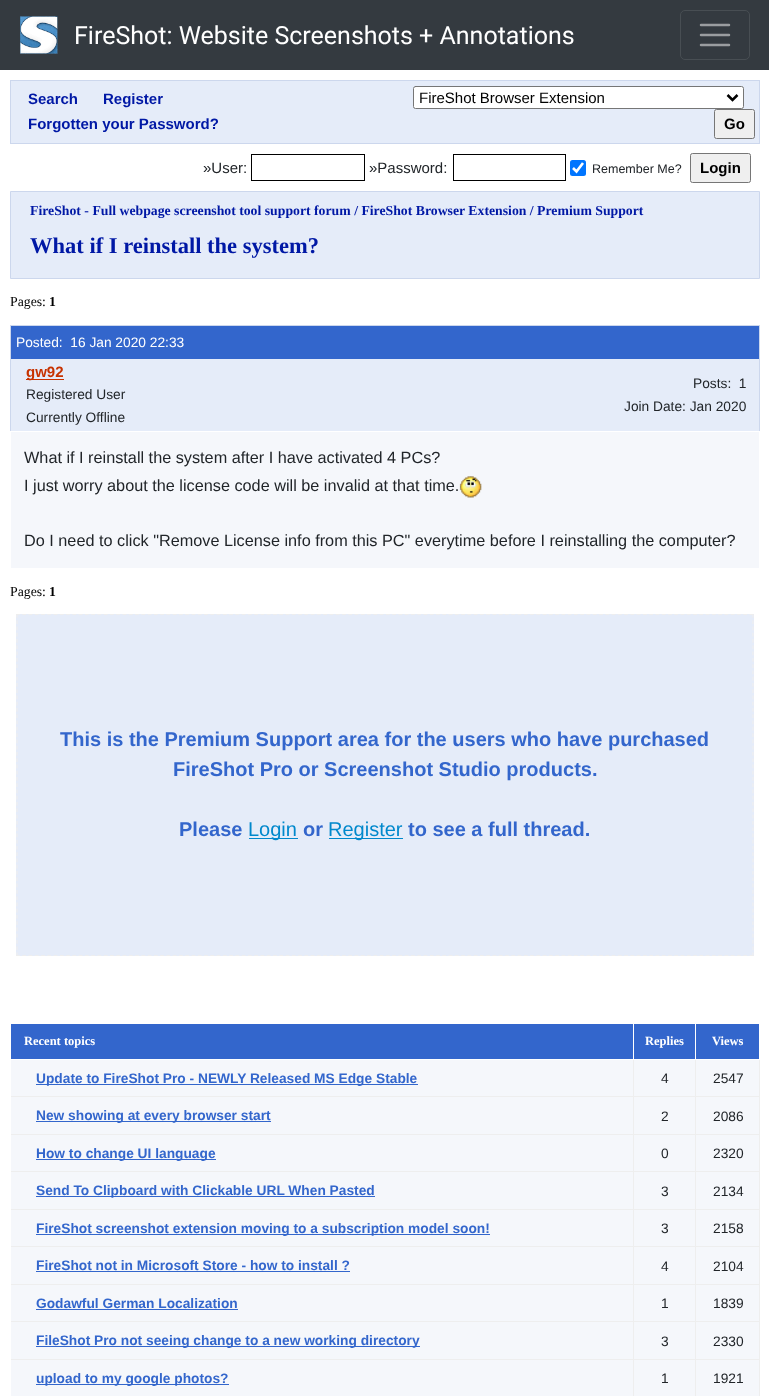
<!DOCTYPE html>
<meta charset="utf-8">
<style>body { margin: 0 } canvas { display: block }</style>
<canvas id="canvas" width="769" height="1396"></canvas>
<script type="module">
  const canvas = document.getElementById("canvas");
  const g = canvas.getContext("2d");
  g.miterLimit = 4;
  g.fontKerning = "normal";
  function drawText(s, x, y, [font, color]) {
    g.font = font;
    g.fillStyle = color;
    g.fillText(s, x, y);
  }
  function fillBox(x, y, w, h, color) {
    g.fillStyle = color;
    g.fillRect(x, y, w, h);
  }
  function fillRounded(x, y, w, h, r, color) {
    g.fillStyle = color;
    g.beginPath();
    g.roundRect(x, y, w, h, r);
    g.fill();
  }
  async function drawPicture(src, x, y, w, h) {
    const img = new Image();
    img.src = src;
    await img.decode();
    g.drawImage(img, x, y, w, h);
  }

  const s1 = ["25px Roboto", "#FFFFFF"];
  const s2 = ["bold 15px Liberation Sans", "#0018A5"];
  const s3 = ["15px Liberation Sans", "#000000"];
  const s4 = ["bold 15px Liberation Sans", "#000000"];
  const s5 = ["15px Liberation Sans", "#212529"];
  const s6 = ["12.5px Liberation Sans", "#212529"];
  const s7 = ["bold 13.75px Liberation Serif", "#0018A5"];
  const s8 = ["bold 22.5px Liberation Serif", "#0018A5"];
  const s9 = ["13.75px Liberation Serif", "#000000"];
  const s10 = ["bold 13.75px Liberation Serif", "#000000"];
  const s11 = ["13.75px Liberation Sans", "#FFFFFF"];
  const s12 = ["bold 15px Liberation Sans", "#C73200"];
  const s13 = ["13.75px Liberation Sans", "#212529"];
  const s14 = ["16.25px Liberation Sans", "#212529"];
  const s15 = ["bold 20px Liberation Sans", "#3366CC"];
  const s16 = ["20px Liberation Sans", "#0088CC"];
  const s17 = ["bold 12.5px Liberation Serif", "#FFFFFF"];
  const s18 = ["bold 13.75px Liberation Sans", "#3366CC"];

  fillBox(0, 0, 769, 1396, "#FFFFFF");
  fillBox(0, 0, 769, 70, "#343A40");
  await drawPicture("pic1.png", 20, 16, 38, 38);
  drawText("FireShot: Website Screenshots + Annotations", 74, 44, s1);
  g.beginPath();
  g.roundRect(680.5, 10.5, 69, 49, 4.5);
  g.strokeStyle = "#484E53";
  g.stroke();
  g.beginPath();
  g.moveTo(701, 25);
  g.lineTo(729, 25);
  g.moveTo(701, 35);
  g.lineTo(729, 35);
  g.moveTo(701, 45);
  g.lineTo(729, 45);
  g.strokeStyle = "#9A9DA0";
  g.lineWidth = 2.5;
  g.lineCap = "round";
  g.stroke();
  fillBox(11, 81, 748, 62, "#E5ECF9");
  fillBox(10, 80, 750, 1, "#CCD7ED");
  fillBox(759, 80, 1, 64, "#CCD7ED");
  fillBox(10, 143, 750, 1, "#CCD7ED");
  fillBox(10, 80, 1, 64, "#CCD7ED");
  drawText("Search", 28, 104, s2);
  drawText("Register", 103, 104, s2);
  drawText("Forgotten your Password?", 28, 129, s2);
  g.fillStyle = "#FFFFFF";
  g.beginPath();
  g.roundRect(413.5, 86.5, 330, 22, 2);
  g.fill();
  g.strokeStyle = "#767676";
  g.lineWidth = 1;
  g.stroke();
  g.beginPath();
  g.moveTo(727.5, 95);
  g.lineTo(732.5, 100);
  g.lineTo(737.5, 95);
  g.strokeStyle = "#000000";
  g.lineWidth = 2.5;
  g.lineCap = "butt";
  g.stroke();
  drawText("FireShot Browser Extension", 419, 103, s3);
  g.fillStyle = "#EFEFEF";
  g.beginPath();
  g.roundRect(714.5, 109.5, 40, 29, 2);
  g.fill();
  g.strokeStyle = "#767676";
  g.lineWidth = 1;
  g.stroke();
  drawText("Go", 724, 129, s4);
  drawText("»User:", 203, 173, s5);
  g.strokeStyle = "#000000";
  g.strokeRect(251.5, 154.5, 113, 26);
  drawText("»Password:", 369, 173, s5);
  g.strokeRect(453.5, 154.5, 112, 26);
  fillRounded(570, 160, 16, 16, 2.5, "#0075FF");
  g.beginPath();
  g.moveTo(573, 168);
  g.lineTo(576.5, 171.5);
  g.lineTo(583, 163);
  g.strokeStyle = "#FFFFFF";
  g.lineWidth = 2.6;
  g.stroke();
  drawText("Remember Me?", 592, 173, s6);
  g.fillStyle = "#EFEFEF";
  g.beginPath();
  g.roundRect(690.5, 153.5, 60, 29, 2);
  g.fill();
  g.strokeStyle = "#767676";
  g.lineWidth = 1;
  g.stroke();
  drawText("Login", 700, 173, s4);
  g.fillStyle = "#E5ECF9";
  g.beginPath();
  g.rect(10.5, 191.5, 749, 87);
  g.fill();
  g.strokeStyle = "#CCD7ED";
  g.stroke();
  drawText("FireShot - Full webpage screenshot tool support forum / FireShot Browser Extension / Premium Support", 30, 215, s7);
  drawText("What if I reinstall the system?", 30, 253, s8);
  drawText("Pages:", 10, 306, s9);
  drawText("1", 49, 306, s10);
  fillBox(10, 325, 750, 1, "#CCD7ED");
  fillBox(759, 325, 1, 106, "#CCD7ED");
  fillBox(10, 325, 1, 106, "#CCD7ED");
  fillBox(11, 326, 748, 33, "#3366CC");
  drawText("Posted:  16 Jan 2020 22:33", 16, 347, s11);
  fillBox(11, 359, 748, 72, "#E5ECF9");
  fillBox(26, 379, 38, 1, "#C73200");
  drawText("gw92", 26, 377, s12);
  drawText("Registered User", 26, 399, s13);
  drawText("Currently Offline", 26, 422, s13);
  drawText("Posts:  1", 693, 388, s13);
  drawText("Join Date: Jan 2020", 624, 411, s13);
  fillBox(11, 432, 748, 136, "#F5F7FB");
  drawText("What if I reinstall the system after I have activated 4 PCs?", 24, 463, s14);
  drawText("I just worry about the license code will be invalid at that time.", 24, 491, s14);
  await drawPicture("pic2.png", 459, 476, 23, 22);
  drawText("Do I need to click \"Remove License info from this PC\" everytime before I reinstalling the computer?", 24, 546, s14);
  drawText("Pages:", 10, 596, s9);
  drawText("1", 49, 596, s10);
  fillBox(16, 614, 738, 342, "#E5ECF9");
  g.beginPath();
  g.moveTo(16, 614.5);
  g.lineTo(754, 614.5);
  g.strokeStyle = "#EEEEEE";
  g.lineWidth = 1.2;
  g.setLineDash([3.75, 2.52]);
  g.stroke();
  g.beginPath();
  g.moveTo(753, 614);
  g.lineTo(753, 956);
  g.stroke();
  g.beginPath();
  g.moveTo(16, 955.5);
  g.lineTo(754, 955.5);
  g.stroke();
  g.beginPath();
  g.moveTo(17, 614);
  g.lineTo(17, 956);
  g.stroke();
  drawText("This is the Premium Support area for the users who have purchased", 60, 746, s15);
  drawText("FireShot Pro or Screenshot Studio products.", 173, 776, s15);
  drawText("Please", 179, 836, s15);
  fillBox(249, 838, 49, 1, "#0088CC");
  drawText("Login", 248, 836, s16);
  drawText("or", 303, 836, s15);
  fillBox(329, 838, 74, 1, "#0088CC");
  drawText("Register", 328, 836, s16);
  drawText("to see a full thread.", 408, 836, s15);
  fillBox(11, 1024, 748, 35, "#3366CC");
  drawText("Recent topics", 24, 1045, s17);
  fillBox(11, 1060, 748, 74, "#F5F7FB");
  fillBox(11, 1135, 748, 74, "#F5F7FB");
  fillBox(11, 1210, 748, 74, "#F5F7FB");
  fillBox(11, 1285, 748, 74, "#F5F7FB");
  fillBox(11, 1360, 748, 36, "#F5F7FB");
  fillBox(695, 1359, 1, 37, "#EEEEEE");
  fillBox(759, 1059, 1, 337, "#EEEEEE");
  fillBox(695, 1359, 65, 1, "#EEEEEE");
  fillBox(695, 1321, 1, 39, "#EEEEEE");
  fillBox(695, 1321, 65, 1, "#EEEEEE");
  fillBox(695, 1284, 1, 39, "#EEEEEE");
  fillBox(695, 1284, 65, 1, "#EEEEEE");
  fillBox(695, 1246, 1, 39, "#EEEEEE");
  fillBox(695, 1246, 65, 1, "#EEEEEE");
  fillBox(695, 1209, 1, 39, "#EEEEEE");
  fillBox(695, 1209, 65, 1, "#EEEEEE");
  fillBox(695, 1171, 1, 39, "#EEEEEE");
  fillBox(695, 1171, 65, 1, "#EEEEEE");
  fillBox(695, 1134, 1, 39, "#EEEEEE");
  fillBox(695, 1134, 65, 1, "#EEEEEE");
  fillBox(695, 1096, 1, 39, "#EEEEEE");
  fillBox(695, 1096, 65, 1, "#EEEEEE");
  fillBox(695, 1059, 1, 39, "#EEEEEE");
  fillBox(633, 1359, 1, 37, "#EEEEEE");
  fillBox(633, 1359, 63, 1, "#EEEEEE");
  fillBox(633, 1321, 1, 39, "#EEEEEE");
  fillBox(633, 1321, 63, 1, "#EEEEEE");
  fillBox(633, 1284, 1, 39, "#EEEEEE");
  fillBox(633, 1284, 63, 1, "#EEEEEE");
  fillBox(633, 1246, 1, 39, "#EEEEEE");
  fillBox(633, 1246, 63, 1, "#EEEEEE");
  fillBox(633, 1209, 1, 39, "#EEEEEE");
  fillBox(633, 1209, 63, 1, "#EEEEEE");
  fillBox(633, 1171, 1, 39, "#EEEEEE");
  fillBox(633, 1171, 63, 1, "#EEEEEE");
  fillBox(633, 1134, 1, 39, "#EEEEEE");
  fillBox(633, 1134, 63, 1, "#EEEEEE");
  fillBox(633, 1096, 1, 39, "#EEEEEE");
  fillBox(633, 1096, 63, 1, "#EEEEEE");
  fillBox(633, 1059, 1, 39, "#EEEEEE");
  fillBox(633, 1023, 1, 37, "#FFFFFF");
  drawText("Replies", 645, 1045, s17);
  fillBox(759, 1059, 1, 1, "#FFFFFF");
  fillBox(695, 1023, 1, 37, "#FFFFFF");
  drawText("Views", 712, 1045, s17);
  fillBox(10, 1096, 624, 1, "#EEEEEE");
  fillBox(10, 1096, 1, 2, "#FFFFFF");
  fillBox(36, 1084, 382, 1, "#3366CC");
  drawText("Update to FireShot Pro - NEWLY Released MS Edge Stable", 36, 1083, s18);
  drawText("4", 661, 1083, s13);
  drawText("2547", 713, 1083, s13);
  fillBox(10, 1134, 624, 1, "#EEEEEE");
  fillBox(10, 1134, 1, 1, "#FFFFFF");
  fillBox(36, 1121, 235, 1, "#3366CC");
  drawText("New showing at every browser start", 36, 1120, s18);
  drawText("2", 661, 1121, s13);
  drawText("2086", 713, 1121, s13);
  fillBox(10, 1171, 624, 1, "#EEEEEE");
  fillBox(10, 1171, 1, 2, "#FFFFFF");
  fillBox(36, 1159, 180, 1, "#3366CC");
  drawText("How to change UI language", 36, 1158, s18);
  drawText("0", 661, 1158, s13);
  drawText("2320", 713, 1158, s13);
  fillBox(10, 1209, 624, 1, "#EEEEEE");
  fillBox(10, 1209, 1, 1, "#FFFFFF");
  fillBox(36, 1196, 339, 1, "#3366CC");
  drawText("Send To Clipboard with Clickable URL When Pasted", 36, 1195, s18);
  drawText("3", 661, 1196, s13);
  drawText("2134", 713, 1196, s13);
  fillBox(10, 1246, 624, 1, "#EEEEEE");
  fillBox(10, 1246, 1, 2, "#FFFFFF");
  fillBox(36, 1234, 454, 1, "#3366CC");
  drawText("FireShot screenshot extension moving to a subscription model soon!", 36, 1233, s18);
  drawText("3", 661, 1233, s13);
  drawText("2158", 713, 1233, s13);
  fillBox(10, 1284, 624, 1, "#EEEEEE");
  fillBox(10, 1284, 1, 1, "#FFFFFF");
  drawText("FireShot not in Microsoft Store - how to install ?", 36, 1270, s18);
  fillBox(36, 1271, 314, 1, "#3366CC");
  drawText("4", 661, 1271, s13);
  drawText("2104", 713, 1271, s13);
  fillBox(10, 1321, 624, 1, "#EEEEEE");
  fillBox(10, 1321, 1, 2, "#FFFFFF");
  drawText("Godawful German Localization", 36, 1308, s18);
  fillBox(36, 1309, 202, 1, "#3366CC");
  drawText("1", 661, 1308, s13);
  drawText("1839", 713, 1308, s13);
  fillBox(10, 1359, 624, 1, "#EEEEEE");
  fillBox(10, 1359, 1, 1, "#FFFFFF");
  fillBox(36, 1346, 384, 1, "#3366CC");
  drawText("FileShot Pro not seeing change to a new working directory", 36, 1345, s18);
  drawText("3", 661, 1346, s13);
  drawText("2330", 713, 1346, s13);
  fillBox(36, 1384, 193, 1, "#3366CC");
  drawText("upload to my google photos?", 36, 1383, s18);
  drawText("1", 661, 1383, s13);
  drawText("1921", 713, 1383, s13);
</script>
